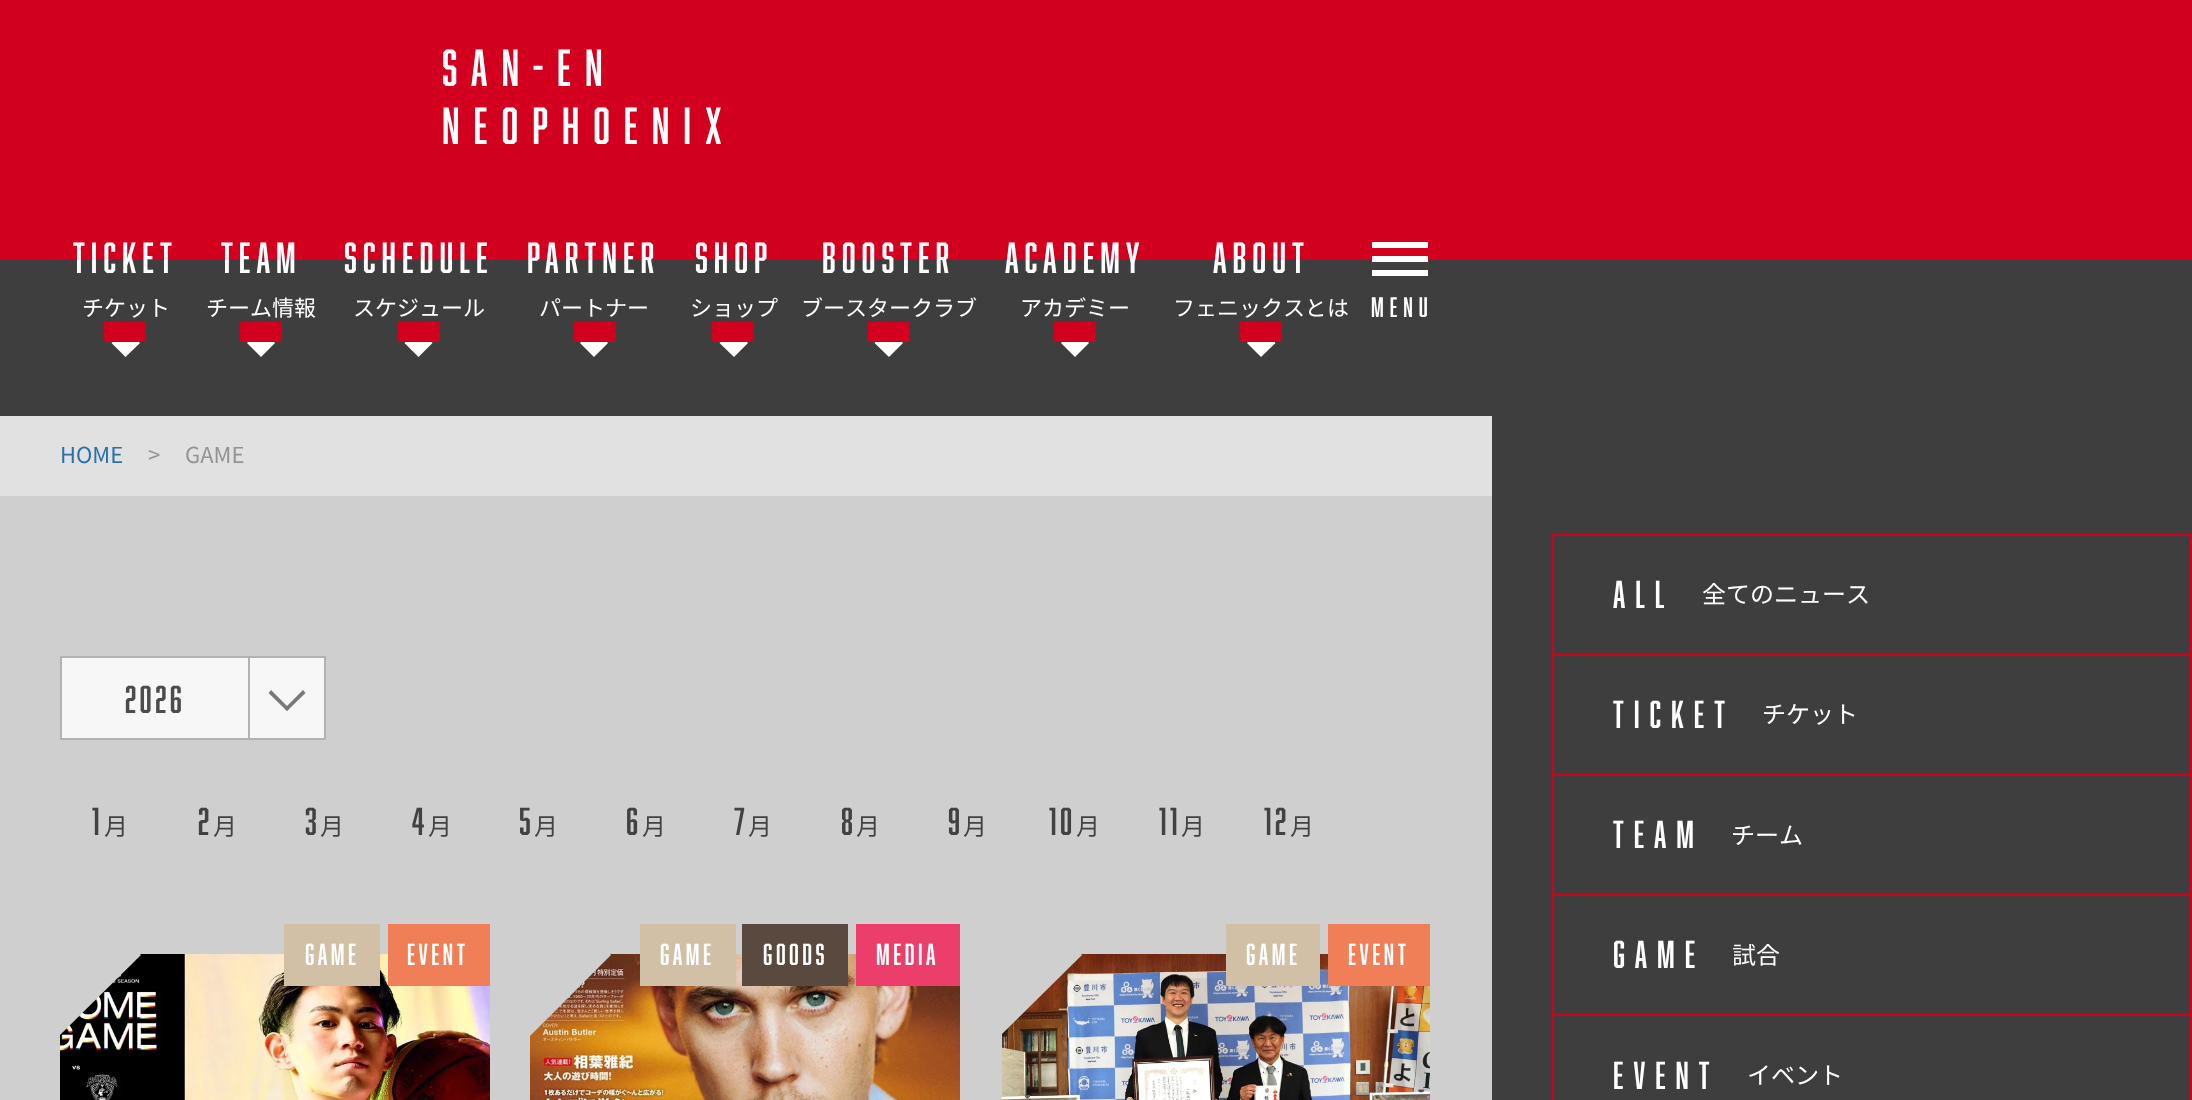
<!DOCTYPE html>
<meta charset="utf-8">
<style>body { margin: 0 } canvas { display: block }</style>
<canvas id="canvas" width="2192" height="1100"></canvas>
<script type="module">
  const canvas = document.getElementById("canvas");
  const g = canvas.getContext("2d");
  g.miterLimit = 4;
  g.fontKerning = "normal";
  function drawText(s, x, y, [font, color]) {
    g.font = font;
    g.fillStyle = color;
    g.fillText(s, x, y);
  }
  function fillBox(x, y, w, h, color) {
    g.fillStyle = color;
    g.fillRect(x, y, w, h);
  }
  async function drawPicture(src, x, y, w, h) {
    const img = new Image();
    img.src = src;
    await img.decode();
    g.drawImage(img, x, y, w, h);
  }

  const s1 = ["48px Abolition", "#FFFFFF"];
  const s2 = ["40px Abolition", "#FFFFFF"];
  const s3 = ["22px Noto Sans CJK JP", "#FFFFFF"];
  const s4 = ["26px Abolition", "#FFFFFF"];
  const s5 = ["22px Noto Sans CJK JP", "#2971A7"];
  const s6 = ["22px Noto Sans CJK JP", "#939393"];
  const s7 = ["36px Abolition", "#4C4C4C"];
  const s8 = ["36px Abolition", "#424242"];
  const s9 = ["24px Noto Sans CJK JP", "#424242"];
  const s10 = ["28px Abolition", "#FFFFFF"];
  const s11 = ["36px Abolition", "#FFFFFF"];
  const s12 = ["24px Noto Sans CJK JP", "#FFFFFF"];

  fillBox(0, 0, 2192, 1100, "#3E3E3E");
  fillBox(0, 0, 2192, 260, "#D2001E");
  g.letterSpacing = "14px";
  drawText("SAN-EN", 442, 86, s1);
  drawText("NEOPHOENIX", 442, 144, s1);
  g.letterSpacing = "6px";
  drawText("TICKET", 73, 273, s2);
  g.letterSpacing = "0px";
  drawText("チケット", 82, 316, s3);
  g.beginPath();
  g.moveTo(125.5, 329);
  g.lineTo(140, 343);
  g.lineTo(125.5, 357);
  g.lineTo(111.5, 343);
  g.closePath();
  g.fill();
  fillBox(104, 322, 42, 20, "#D2001E");
  g.letterSpacing = "6px";
  drawText("TEAM", 221, 273, s2);
  g.letterSpacing = "0px";
  drawText("チーム情報", 206, 316, s3);
  g.beginPath();
  g.moveTo(261, 329);
  g.lineTo(275, 343);
  g.lineTo(261, 357);
  g.lineTo(247, 343);
  g.closePath();
  g.fill();
  fillBox(240, 322, 42, 20, "#D2001E");
  g.letterSpacing = "6px";
  drawText("SCHEDULE", 344, 273, s2);
  g.letterSpacing = "0px";
  drawText("スケジュール", 353, 316, s3);
  g.beginPath();
  g.moveTo(418.5, 329);
  g.lineTo(432.5, 343);
  g.lineTo(418.5, 357);
  g.lineTo(404.5, 343);
  g.closePath();
  g.fill();
  fillBox(398, 322, 42, 20, "#D2001E");
  g.letterSpacing = "6px";
  drawText("PARTNER", 527, 273, s2);
  g.letterSpacing = "0px";
  drawText("パートナー", 539, 316, s3);
  g.beginPath();
  g.moveTo(594, 329);
  g.lineTo(608, 343);
  g.lineTo(594, 357);
  g.lineTo(580, 343);
  g.closePath();
  g.fill();
  fillBox(574, 322, 42, 20, "#D2001E");
  g.letterSpacing = "6px";
  drawText("SHOP", 695, 273, s2);
  g.letterSpacing = "0px";
  drawText("ショップ", 690, 316, s3);
  g.beginPath();
  g.moveTo(734, 329);
  g.lineTo(748, 343);
  g.lineTo(734, 357);
  g.lineTo(719.5, 343);
  g.closePath();
  g.fill();
  fillBox(712, 322, 42, 20, "#D2001E");
  g.letterSpacing = "6px";
  drawText("BOOSTER", 822, 273, s2);
  g.letterSpacing = "0px";
  drawText("ブースタークラブ", 801, 316, s3);
  g.beginPath();
  g.moveTo(889, 329);
  g.lineTo(903, 343);
  g.lineTo(889, 357);
  g.lineTo(874.5, 343);
  g.closePath();
  g.fill();
  fillBox(868, 322, 42, 20, "#D2001E");
  g.letterSpacing = "6px";
  drawText("ACADEMY", 1005, 273, s2);
  g.letterSpacing = "0px";
  drawText("アカデミー", 1020, 316, s3);
  g.beginPath();
  g.moveTo(1075, 329);
  g.lineTo(1089, 343);
  g.lineTo(1075, 357);
  g.lineTo(1061, 343);
  g.closePath();
  g.fill();
  fillBox(1054, 322, 42, 20, "#D2001E");
  g.letterSpacing = "6px";
  drawText("ABOUT", 1213, 273, s2);
  g.letterSpacing = "0px";
  drawText("フェニックスとは", 1173, 316, s3);
  g.beginPath();
  g.moveTo(1261, 329);
  g.lineTo(1275.5, 343);
  g.lineTo(1261, 357);
  g.lineTo(1247, 343);
  g.closePath();
  g.fill();
  fillBox(1240, 322, 42, 20, "#D2001E");
  fillBox(1372, 242, 56, 6, "#FFFFFF");
  fillBox(1372, 256, 56, 6, "#FFFFFF");
  fillBox(1372, 270, 56, 6, "#FFFFFF");
  g.letterSpacing = "6px";
  drawText("MENU", 1371, 317, s4);
  fillBox(0, 496, 1492, 604, "#CFCFCF");
  fillBox(0, 416, 1492, 80, "#E1E1E2");
  g.letterSpacing = "0px";
  drawText("HOME", 60, 463, s5);
  drawText(">", 148, 463, s6);
  drawText("GAME", 185, 463, s6);
  g.fillStyle = "#F7F7F7";
  g.beginPath();
  g.rect(61, 657, 188, 82);
  g.fill();
  g.strokeStyle = "#B2B2B2";
  g.lineWidth = 2;
  g.stroke();
  g.letterSpacing = "3.5px";
  drawText("2026", 125, 713, s7);
  fillBox(250, 658, 74, 80, "#F7F7F7");
  fillBox(250, 656, 76, 2, "#B2B2B2");
  fillBox(324, 656, 2, 84, "#B2B2B2");
  fillBox(250, 738, 76, 2, "#B2B2B2");
  g.fillStyle = "#797979";
  g.beginPath();
  g.moveTo(271, 690);
  g.lineTo(289.5, 708.5);
  g.lineTo(287, 711);
  g.lineTo(268.5, 693);
  g.closePath();
  g.fill();
  g.beginPath();
  g.moveTo(284.5, 708.5);
  g.lineTo(303, 690);
  g.lineTo(305.5, 693);
  g.lineTo(287, 711);
  g.closePath();
  g.fill();
  drawText("1", 92, 835, s8);
  g.letterSpacing = "0px";
  drawText("月", 104, 835, s9);
  g.letterSpacing = "3.5px";
  drawText("2", 198, 835, s8);
  g.letterSpacing = "0px";
  drawText("月", 213, 835, s9);
  g.letterSpacing = "3.5px";
  drawText("3", 305, 835, s8);
  g.letterSpacing = "0px";
  drawText("月", 320, 835, s9);
  g.letterSpacing = "3.5px";
  drawText("4", 412, 835, s8);
  g.letterSpacing = "0px";
  drawText("月", 428, 835, s9);
  g.letterSpacing = "3.5px";
  drawText("5", 519, 835, s8);
  g.letterSpacing = "0px";
  drawText("月", 534, 835, s9);
  g.letterSpacing = "3.5px";
  drawText("6", 626, 835, s8);
  g.letterSpacing = "0px";
  drawText("月", 642, 835, s9);
  g.letterSpacing = "3.5px";
  drawText("7", 734, 835, s8);
  g.letterSpacing = "0px";
  drawText("月", 748, 835, s9);
  g.letterSpacing = "3.5px";
  drawText("8", 841, 835, s8);
  g.letterSpacing = "0px";
  drawText("月", 856, 835, s9);
  g.letterSpacing = "3.5px";
  drawText("9", 948, 835, s8);
  g.letterSpacing = "0px";
  drawText("月", 963, 835, s9);
  g.letterSpacing = "3.5px";
  drawText("10", 1049, 835, s8);
  g.letterSpacing = "0px";
  drawText("月", 1076, 835, s9);
  g.letterSpacing = "3.5px";
  drawText("11", 1159, 835, s8);
  g.letterSpacing = "0px";
  drawText("月", 1181, 835, s9);
  g.letterSpacing = "3.5px";
  drawText("12", 1264, 835, s8);
  g.letterSpacing = "0px";
  drawText("月", 1290, 835, s9);
  await drawPicture("pic1.png", 60, 954, 430, 146);
  fillBox(284, 924, 96, 62, "#D1C0A5");
  g.letterSpacing = "3.5px";
  drawText("GAME", 305, 965, s10);
  fillBox(388, 924, 102, 62, "#F07E57");
  drawText("EVENT", 407, 965, s10);
  g.save();
  g.beginPath();
  g.rect(60, 954, 430, 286);
  g.clip();
  g.fillStyle = "#CFCFCF";
  g.beginPath();
  g.moveTo(56, 870);
  g.lineTo(141, 955);
  g.lineTo(56, 1039);
  g.lineTo(-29, 955);
  g.closePath();
  g.fill();
  g.restore();
  await drawPicture("pic2.png", 530, 954, 430, 146);
  fillBox(640, 924, 96, 62, "#D1C0A5");
  drawText("GAME", 660, 965, s10);
  fillBox(742, 924, 106, 62, "#59493F");
  drawText("GOODS", 763, 965, s10);
  fillBox(856, 924, 104, 62, "#EC3E6B");
  drawText("MEDIA", 876, 965, s10);
  g.save();
  g.beginPath();
  g.rect(530, 954, 430, 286);
  g.clip();
  g.fillStyle = "#CFCFCF";
  g.beginPath();
  g.moveTo(527, 870);
  g.lineTo(611, 955);
  g.lineTo(527, 1039);
  g.lineTo(442, 955);
  g.closePath();
  g.fill();
  g.restore();
  await drawPicture("pic3.png", 1002, 954, 428, 146);
  fillBox(1226, 924, 94, 62, "#D1C0A5");
  drawText("GAME", 1246, 965, s10);
  fillBox(1328, 924, 102, 62, "#F07E57");
  drawText("EVENT", 1348, 965, s10);
  g.save();
  g.beginPath();
  g.rect(1002, 954, 428, 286);
  g.clip();
  g.fillStyle = "#CFCFCF";
  g.beginPath();
  g.moveTo(997, 870);
  g.lineTo(1082, 955);
  g.lineTo(997, 1039);
  g.lineTo(912, 955);
  g.closePath();
  g.fill();
  g.restore();
  g.strokeStyle = "#D2001E";
  g.strokeRect(1553, 535, 638, 120);
  g.letterSpacing = "10px";
  drawText("ALL", 1613, 608, s11);
  g.letterSpacing = "0px";
  drawText("全てのニュース", 1702, 603, s12);
  g.strokeRect(1553, 655, 638, 120);
  g.letterSpacing = "10px";
  drawText("TICKET", 1613, 728, s11);
  g.letterSpacing = "0px";
  drawText("チケット", 1762, 723, s12);
  g.strokeRect(1553, 775, 638, 120);
  g.letterSpacing = "10px";
  drawText("TEAM", 1613, 848, s11);
  g.letterSpacing = "0px";
  drawText("チーム", 1731, 844, s12);
  g.strokeRect(1553, 895, 638, 120);
  g.letterSpacing = "10px";
  drawText("GAME", 1613, 968, s11);
  g.letterSpacing = "0px";
  drawText("試合", 1732, 964, s12);
  g.strokeRect(1553, 1015, 638, 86);
  g.letterSpacing = "10px";
  drawText("EVENT", 1613, 1089, s11);
  g.letterSpacing = "0px";
  drawText("イベント", 1747, 1084, s12);
</script>
